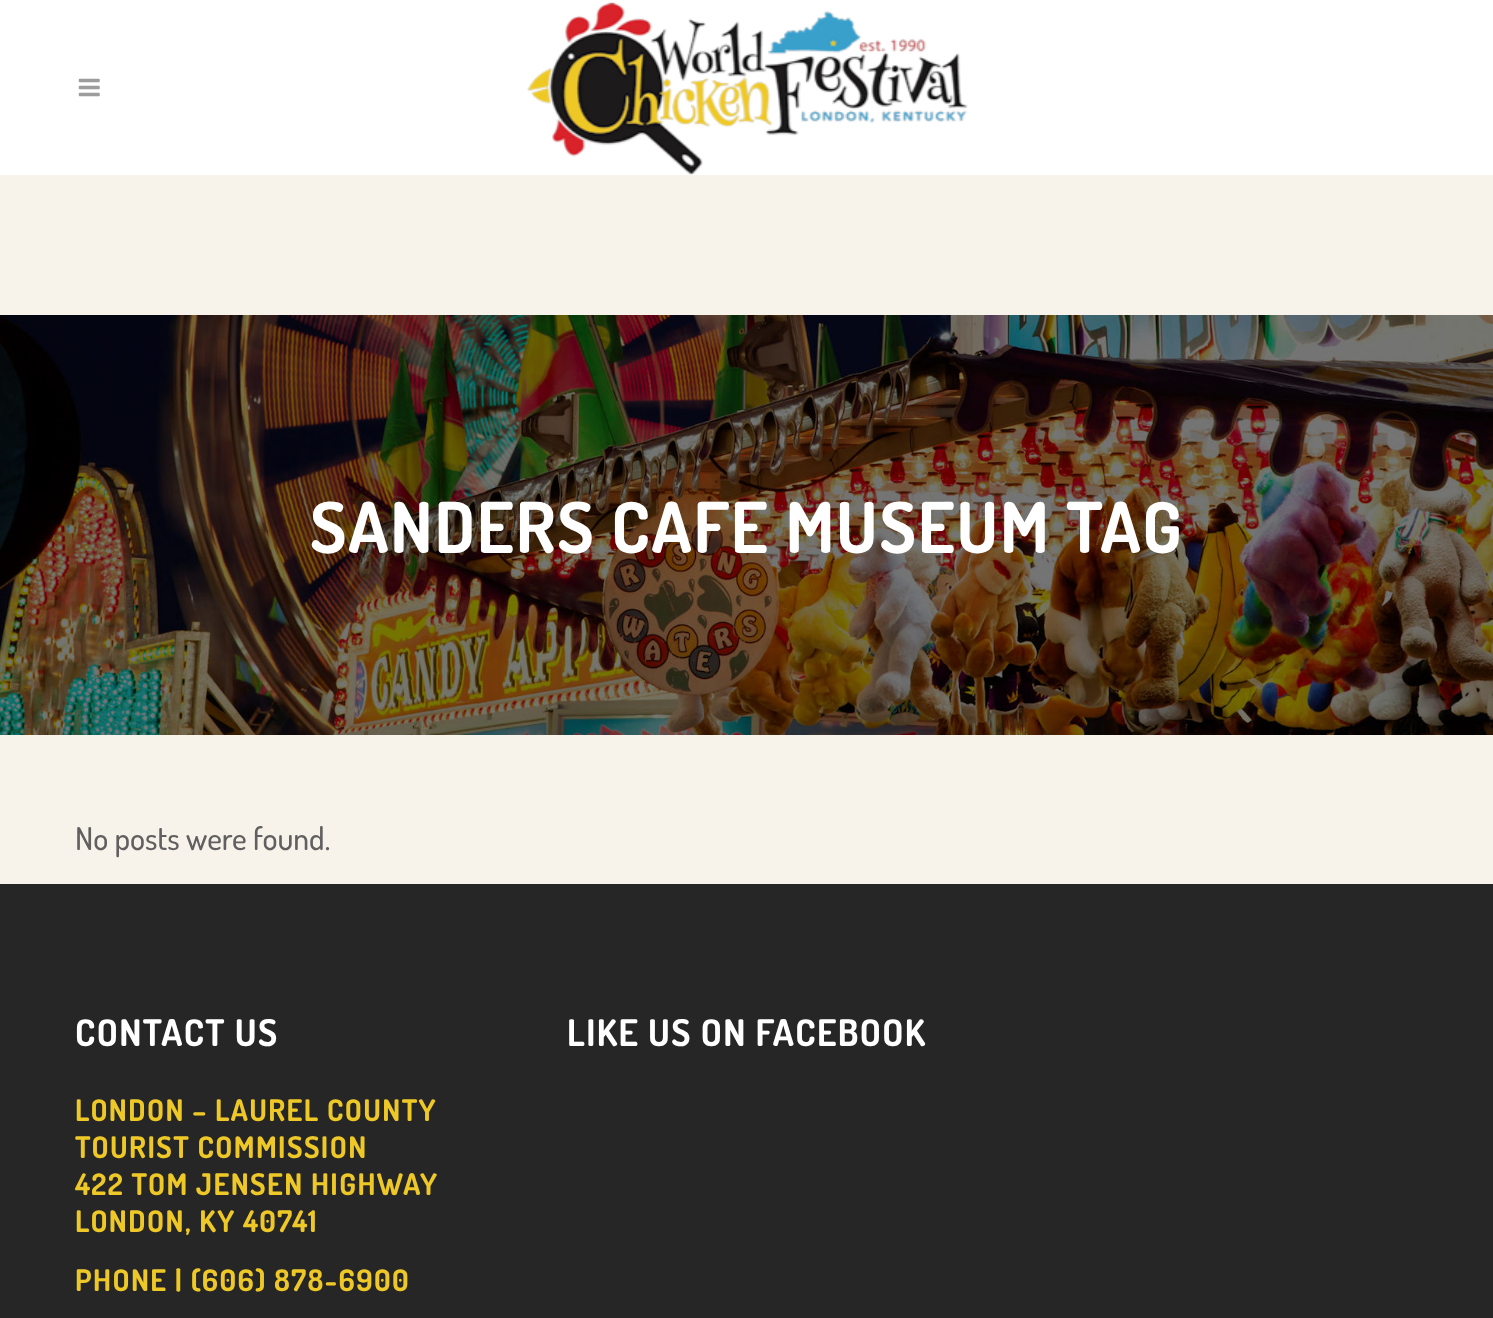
<!DOCTYPE html>
<meta charset="utf-8">
<style>body { margin: 0 } canvas { display: block }</style>
<canvas id="canvas" width="1493" height="1318"></canvas>
<script type="module">
  const canvas = document.getElementById("canvas");
  const g = canvas.getContext("2d");
  g.miterLimit = 4;
  g.fontKerning = "normal";
  function drawText(s, x, y, [font, color]) {
    g.font = font;
    g.fillStyle = color;
    g.fillText(s, x, y);
  }
  function fillBox(x, y, w, h, color) {
    g.fillStyle = color;
    g.fillRect(x, y, w, h);
  }
  async function drawPicture(src, x, y, w, h) {
    const img = new Image();
    img.src = src;
    await img.decode();
    g.drawImage(img, x, y, w, h);
  }

  const s1 = ["bold 70px Dosis", "#FFFFFF"];
  const s2 = ["500 31.5px Dosis", "#615F5F"];
  const s3 = ["bold 36.75px Dosis", "#FFFFFF"];
  const s4 = ["bold 29.75px Dosis", "#EEC826"];

  fillBox(0, 0, 1493, 1318, "#F7F2EA");
  fillBox(0, 0, 1493, 175, "#FFFFFF");
  await drawPicture("pic1.png", 78, 78, 22, 19);
  await drawPicture("pic2.png", 527, 2, 441, 173);
  await drawPicture("pic3.png", 0, 315, 1493, 420);
  g.letterSpacing = "1.75px";
  drawText("SANDERS CAFE MUSEUM TAG", 310, 553, s1);
  g.letterSpacing = "0px";
  drawText("No posts were found.", 75, 850, s2);
  fillBox(0, 884, 1493, 434, "#262626");
  g.letterSpacing = "1.4px";
  drawText("CONTACT US", 75, 1046, s3);
  drawText("LONDON – LAUREL COUNTY", 75, 1121, s4);
  drawText("TOURIST COMMISSION", 75, 1158, s4);
  drawText("422 TOM JENSEN HIGHWAY", 75, 1195, s4);
  drawText("LONDON, KY 40741", 75, 1232, s4);
  drawText("PHONE | (606) 878-6900", 75, 1291, s4);
  drawText("LIKE US ON FACEBOOK", 567, 1046, s3);
</script>
